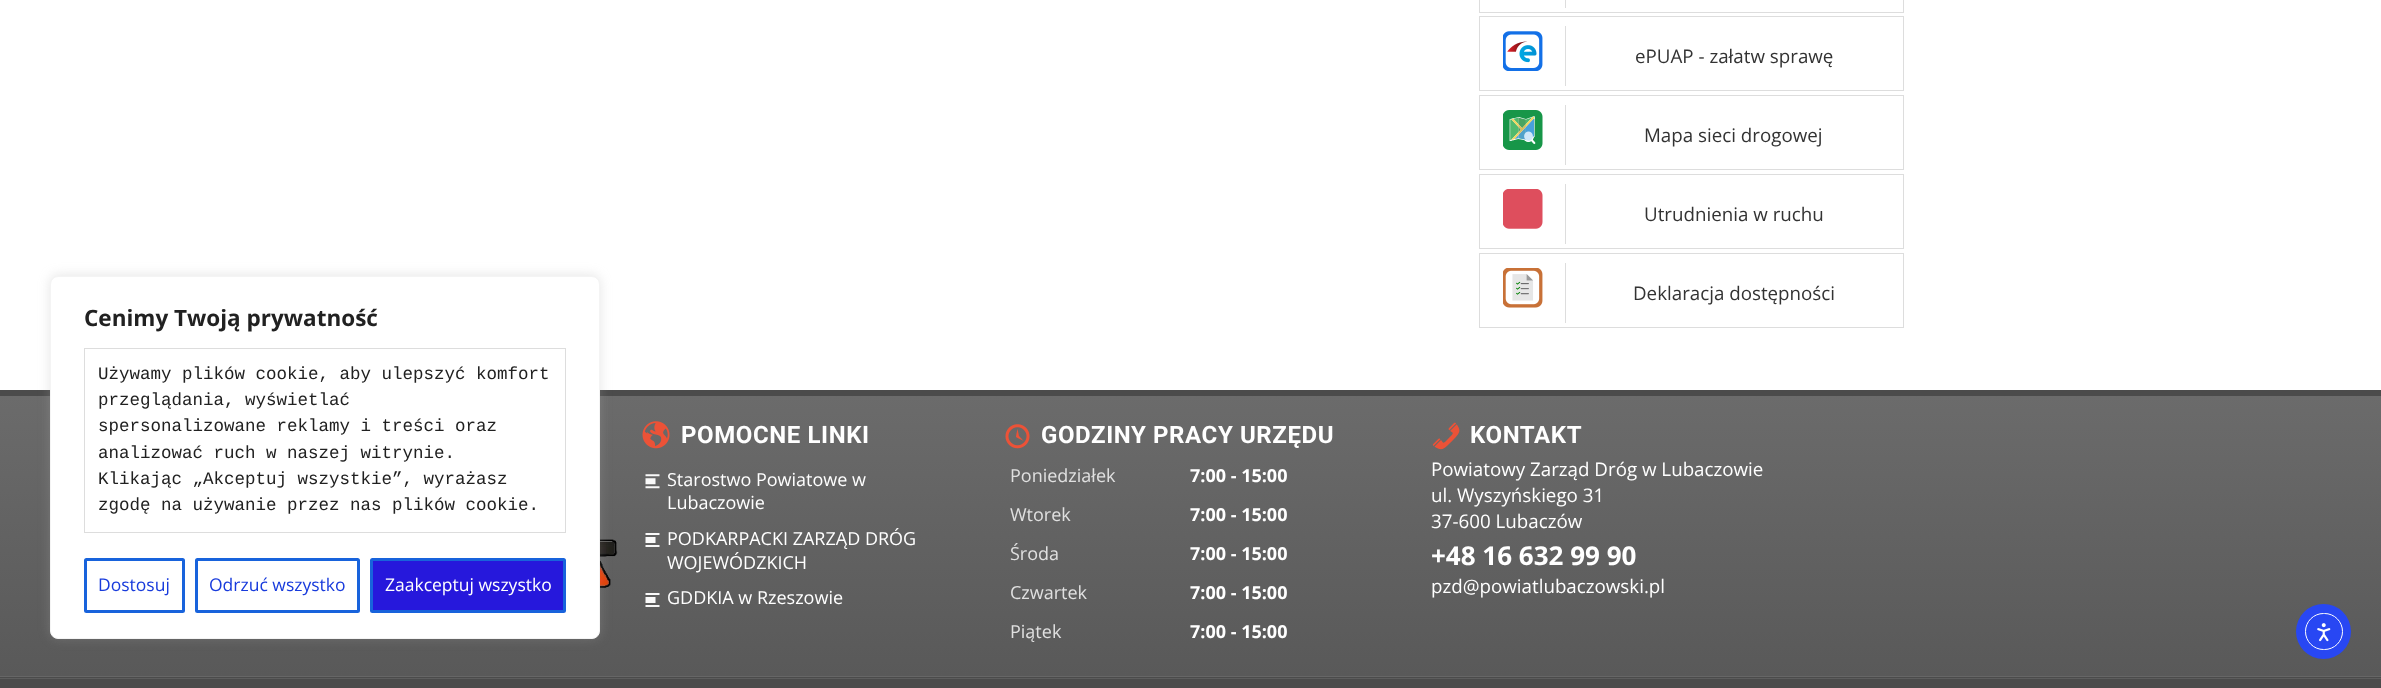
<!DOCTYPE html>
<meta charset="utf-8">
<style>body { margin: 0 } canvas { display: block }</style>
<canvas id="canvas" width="2381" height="688"></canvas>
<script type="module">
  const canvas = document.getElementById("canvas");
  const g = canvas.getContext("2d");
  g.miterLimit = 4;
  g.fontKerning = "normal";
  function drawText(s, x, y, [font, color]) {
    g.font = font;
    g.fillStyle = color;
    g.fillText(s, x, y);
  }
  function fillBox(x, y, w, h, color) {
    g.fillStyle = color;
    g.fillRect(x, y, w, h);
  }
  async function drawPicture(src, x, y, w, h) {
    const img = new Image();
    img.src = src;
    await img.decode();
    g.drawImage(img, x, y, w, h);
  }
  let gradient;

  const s1 = ["bold 22.5px Open Sans", "#212121"];
  const s2 = ["17.5px Liberation Mono", "#212121"];
  const s3 = ["17.5px Open Sans", "#183BDC"];
  const s4 = ["17.5px Open Sans", "#FFFFFF"];
  const s5 = ["18.75px Open Sans", "#333333"];
  const s6 = ["bold 24px Roboto", "#FFFFFF"];
  const s7 = ["18px Open Sans", "#FFFFFF"];
  const s8 = ["18px Open Sans", "#E0E0E0"];
  const s9 = ["bold 18px Open Sans", "#FFFFFF"];
  const s10 = ["18.75px Open Sans", "#FFFFFF"];
  const s11 = ["bold 26px Open Sans", "#FFFFFF"];

  fillBox(0, 0, 2381, 688, "#FFFFFF");
  gradient = g.createLinearGradient(1191, 396, 1191, 676);
  gradient.addColorStop(0, "#6B6B6B");
  gradient.addColorStop(1, "#595959");
  g.fillStyle = gradient;
  g.fillRect(0, 396, 2381, 280);
  fillBox(0, 390, 2381, 6, "#4B4B4B");
  await drawPicture("pic6.png", 600, 539, 18, 49);
  g.fillStyle = "rgba(172, 171, 171, 0.3)";
  g.filter = "blur(6px)";
  g.beginPath();
  g.roundRect(50, 275, 550, 363, 8);
  g.fill();
  g.filter = "none";
  g.fillStyle = "#FFFFFF";
  g.beginPath();
  g.roundRect(50.5, 276.5, 549, 362, 7.5);
  g.fill();
  g.strokeStyle = "#F4F4F4";
  g.stroke();
  drawText("Cenimy Twoją prywatność", 84, 326, s1);
  g.strokeStyle = "#DDDDDD";
  g.strokeRect(84.5, 348.5, 481, 184);
  drawText("Używamy plików cookie, aby ulepszyć komfort", 98, 379, s2);
  drawText("przeglądania, wyświetlać", 98, 405, s2);
  drawText("spersonalizowane reklamy i treści oraz", 98, 431, s2);
  drawText("analizować ruch w naszej witrynie.", 98, 458, s2);
  drawText("Klikając „Akceptuj wszystkie”, wyrażasz", 98, 484, s2);
  drawText("zgodę na używanie przez nas plików cookie.", 98, 510, s2);
  g.beginPath();
  g.roundRect(85.5, 559.5, 98, 52, 1);
  g.strokeStyle = "#1863DC";
  g.lineWidth = 3;
  g.stroke();
  drawText("Dostosuj", 98, 591, s3);
  g.beginPath();
  g.roundRect(196.5, 559.5, 162, 52, 1);
  g.stroke();
  drawText("Odrzuć wszystko", 209, 591, s3);
  g.fillStyle = "#2618DC";
  g.beginPath();
  g.roundRect(371.5, 559.5, 193, 52, 1);
  g.fill();
  g.stroke();
  drawText("Zaakceptuj wszystko", 385, 591, s4);
  g.strokeStyle = "#DDDDDD";
  g.lineWidth = 1;
  g.strokeRect(1479.5, -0.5, 424, 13);
  fillBox(1565, 0, 1, 8, "#DDDDDD");
  g.strokeRect(1479.5, 16.5, 424, 74);
  await drawPicture("pic1.png", 1503, 31, 40, 40);
  fillBox(1565, 26, 1, 60, "#DDDDDD");
  drawText("ePUAP - załatw sprawę", 1635, 63, s5);
  g.strokeRect(1479.5, 95.5, 424, 74);
  await drawPicture("pic2.png", 1503, 110, 40, 40);
  fillBox(1565, 105, 1, 60, "#DDDDDD");
  drawText("Mapa sieci drogowej", 1644, 142, s5);
  g.strokeRect(1479.5, 174.5, 424, 74);
  await drawPicture("pic3.png", 1503, 189, 40, 40);
  fillBox(1565, 184, 1, 60, "#DDDDDD");
  drawText("Utrudnienia w ruchu", 1644, 221, s5);
  g.strokeRect(1479.5, 253.5, 424, 74);
  await drawPicture("pic4.png", 1503, 268, 40, 40);
  fillBox(1565, 263, 1, 60, "#DDDDDD");
  drawText("Deklaracja dostępności", 1633, 300, s5);
  await drawPicture("pic5.png", 642, 421, 28, 28);
  g.letterSpacing = "0.6px";
  drawText("POMOCNE LINKI", 681, 443, s6);
  await drawPicture("pic7.png", 645, 474, 15, 15);
  g.letterSpacing = "0px";
  drawText("Starostwo Powiatowe w", 667, 486, s7);
  drawText("Lubaczowie", 667, 509, s7);
  await drawPicture("pic8.png", 645, 533, 15, 14);
  drawText("PODKARPACKI ZARZĄD DRÓG", 667, 545, s7);
  drawText("WOJEWÓDZKICH", 667, 569, s7);
  await drawPicture("pic9.png", 645, 593, 15, 14);
  drawText("GDDKIA w Rzeszowie", 667, 604, s7);
  await drawPicture("pic10.png", 1005, 424, 25, 25);
  g.letterSpacing = "0.6px";
  drawText("GODZINY PRACY URZĘDU", 1041, 443, s6);
  g.letterSpacing = "0px";
  drawText("Poniedziałek", 1010, 482, s8);
  drawText("7:00 - 15:00", 1190, 482, s9);
  drawText("Wtorek", 1010, 521, s8);
  drawText("7:00 - 15:00", 1190, 521, s9);
  drawText("Środa", 1010, 560, s8);
  drawText("7:00 - 15:00", 1190, 560, s9);
  drawText("Czwartek", 1010, 599, s8);
  drawText("7:00 - 15:00", 1190, 599, s9);
  drawText("Piątek", 1010, 638, s8);
  drawText("7:00 - 15:00", 1190, 638, s9);
  await drawPicture("pic11.png", 1432, 422, 28, 28);
  g.letterSpacing = "0.6px";
  drawText("KONTAKT", 1470, 443, s6);
  g.letterSpacing = "0px";
  drawText("Powiatowy Zarząd Dróg w Lubaczowie", 1431, 476, s10);
  drawText("ul. Wyszyńskiego 31", 1431, 502, s10);
  drawText("37-600 Lubaczów", 1431, 528, s10);
  drawText("+48 16 632 99 90", 1431, 565, s11);
  drawText("pzd@powiatlubaczowski.pl", 1431, 593, s10);
  fillBox(0, 677, 2381, 11, "#4B4B4B");
  fillBox(0, 678, 2381, 1, "#5D5D5D");
  fillBox(0, 676, 2381, 1, "#666666");
  g.fillStyle = "#2847F3";
  g.beginPath();
  g.arc(2323.5, 631.5, 27.5, 0, Math.PI * 2);
  g.fill();
  g.beginPath();
  g.roundRect(2305.5, 613.5, 37, 36, 18);
  g.strokeStyle = "#FFFFFF";
  g.stroke();
  await drawPicture("pic12.png", 2317, 623, 14, 19);
</script>
